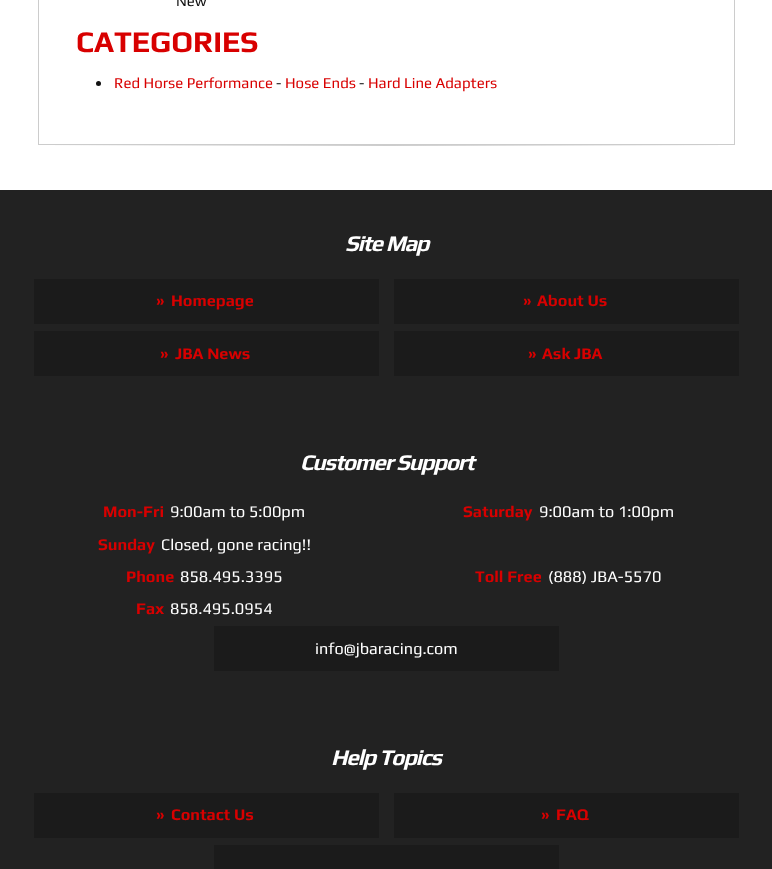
<!DOCTYPE html>
<meta charset="utf-8">
<style>body { margin: 0 } canvas { display: block }</style>
<canvas id="canvas" width="772" height="869"></canvas>
<script type="module">
  const canvas = document.getElementById("canvas");
  const g = canvas.getContext("2d");
  g.miterLimit = 4;
  g.fontKerning = "normal";
  function drawText(s, x, y, [font, color]) {
    g.font = font;
    g.fillStyle = color;
    g.fillText(s, x, y);
  }
  function fillBox(x, y, w, h, color) {
    g.fillStyle = color;
    g.fillRect(x, y, w, h);
  }
  let gradient;

  const s1 = ["15px Play", "#111111"];
  const s2 = ["bold 30px Play", "#D80000"];
  const s3 = ["15px Play", "#D80000"];
  const s4 = ["italic bold 22.5px Play", "#FFFFFF"];
  const s5 = ["bold 16.25px Play", "#D80000"];
  const s6 = ["16.25px Play", "#FFFFFF"];

  fillBox(0, 0, 772, 869, "#222222");
  fillBox(0, 0, 772, 190, "#FFFFFF");
  g.strokeStyle = "#CCCCCC";
  g.strokeRect(38.5, -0.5, 696, 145);
  drawText("New", 176, 6, s1);
  drawText("CATEGORIES", 76, 52, s2);
  g.fillStyle = "#111111";
  g.beginPath();
  g.arc(98.5, 83.5, 2.5, 0, Math.PI * 2);
  g.fill();
  drawText("Red Horse Performance", 114, 88, s3);
  drawText("-", 276, 88, s1);
  drawText("Hose Ends", 285, 88, s3);
  drawText("-", 359, 88, s1);
  drawText("Hard Line Adapters", 368, 88, s3);
  gradient = g.createLinearGradient(38, 146, 735, 146);
  gradient.addColorStop(0, "#FFFFFF");
  gradient.addColorStop(0.5, "#CCCCCC");
  gradient.addColorStop(1, "#FFFFFF");
  g.fillStyle = gradient;
  g.fillRect(55, 145, 663, 1);
  g.letterSpacing = "-1.25px";
  drawText("Site Map", 345, 251, s4);
  fillBox(34, 279, 345, 45, "#1B1B1B");
  g.letterSpacing = "0px";
  drawText("»", 156, 306, s5);
  drawText("Homepage", 171, 306, s5);
  fillBox(394, 279, 345, 45, "#1B1B1B");
  drawText("»", 523, 306, s5);
  drawText("About Us", 537, 306, s5);
  fillBox(34, 331, 345, 45, "#1B1B1B");
  drawText("»", 160, 359, s5);
  drawText("JBA News", 175, 359, s5);
  fillBox(394, 331, 345, 45, "#1B1B1B");
  drawText("»", 528, 359, s5);
  drawText("Ask JBA", 542, 359, s5);
  g.letterSpacing = "-1.25px";
  drawText("Customer Support", 300, 470, s4);
  g.letterSpacing = "0px";
  drawText("Mon-Fri", 103, 517, s5);
  drawText("9:00am to 5:00pm", 170, 517, s6);
  drawText("Saturday", 463, 517, s5);
  drawText("9:00am to 1:00pm", 539, 517, s6);
  drawText("Sunday", 98, 550, s5);
  drawText("Closed, gone racing!!", 161, 550, s6);
  drawText("Phone", 126, 582, s5);
  drawText("858.495.3395", 180, 582, s6);
  drawText("Toll Free", 475, 582, s5);
  drawText("(888) JBA-5570", 548, 582, s6);
  drawText("Fax", 136, 614, s5);
  drawText("858.495.0954", 170, 614, s6);
  fillBox(214, 626, 345, 45, "#1B1B1B");
  drawText("info@jbaracing.com", 315, 654, s6);
  g.letterSpacing = "-1.25px";
  drawText("Help Topics", 331, 765, s4);
  fillBox(34, 793, 345, 45, "#1B1B1B");
  g.letterSpacing = "0px";
  drawText("»", 156, 820, s5);
  drawText("Contact Us", 171, 820, s5);
  fillBox(394, 793, 345, 45, "#1B1B1B");
  drawText("»", 541, 820, s5);
  drawText("FAQ", 556, 820, s5);
  fillBox(214, 845, 345, 24, "#1B1B1B");
</script>
